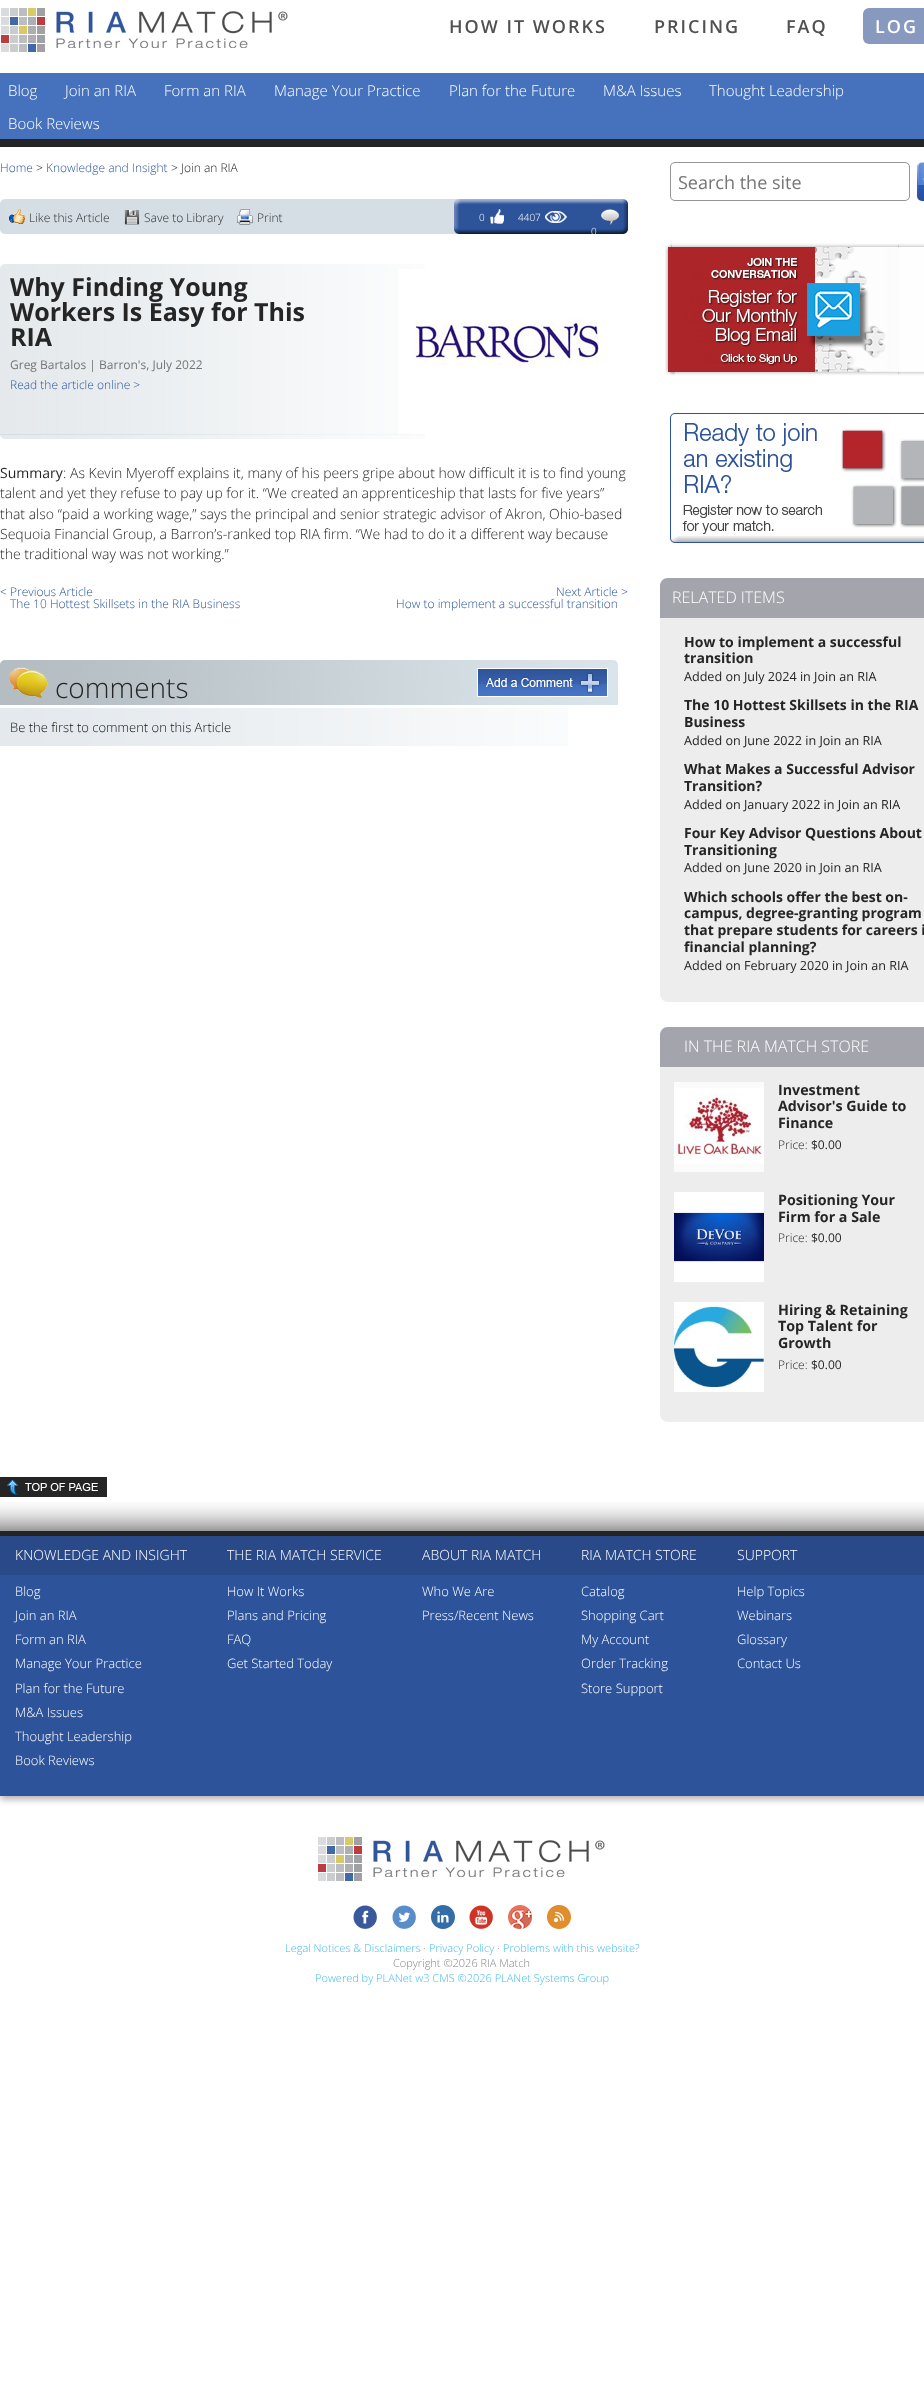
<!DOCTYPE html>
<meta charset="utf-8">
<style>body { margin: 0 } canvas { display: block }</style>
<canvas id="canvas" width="924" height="2394"></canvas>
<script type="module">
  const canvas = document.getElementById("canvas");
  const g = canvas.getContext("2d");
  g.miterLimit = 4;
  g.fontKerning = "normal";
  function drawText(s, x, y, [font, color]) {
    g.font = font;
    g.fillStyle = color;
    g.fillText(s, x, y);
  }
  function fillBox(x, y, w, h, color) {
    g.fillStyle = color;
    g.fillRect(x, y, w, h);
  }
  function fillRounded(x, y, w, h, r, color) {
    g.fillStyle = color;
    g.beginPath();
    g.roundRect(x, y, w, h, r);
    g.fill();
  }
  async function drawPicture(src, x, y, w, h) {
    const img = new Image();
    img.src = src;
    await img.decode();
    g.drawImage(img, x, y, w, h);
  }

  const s1 = ["600 18px Open Sans", "#505050"];
  const s2 = ["600 18px Open Sans", "#FFFFFF"];
  const s3 = ["300 15px Open Sans", "#FFFFFF"];
  const s4 = ["300 12px Open Sans", "#2A569B"];
  const s5 = ["300 12px Open Sans", "#252525"];
  const s6 = ["300 12px Open Sans", "#2D2D2D"];
  const s7 = ["300 10px Open Sans", "#FFFFFF"];
  const s8 = ["bold 25px Open Sans", "#252525"];
  const s9 = ["12px Open Sans", "#757575"];
  const s10 = ["14px Open Sans", "#252525"];
  const s11 = ["300 14px Open Sans", "#252525"];
  const s12 = ["300 28px Open Sans", "#252525"];
  const s13 = ["300 13px Open Sans", "#111111"];
  const s14 = ["18px Open Sans", "#757575"];
  const s15 = ["300 16px Open Sans", "#FFFFFF"];
  const s16 = ["bold 14px Open Sans", "#252525"];
  const s17 = ["12.6px Open Sans", "#252525"];
  const s18 = ["bold 14.25px Open Sans", "#252525"];
  const s19 = ["12px Open Sans", "#252525"];
  const s20 = ["300 14px Open Sans", "#FFFFFF"];
  const s21 = ["300 13px Open Sans", "#FFFFFF"];
  const s22 = ["300 11px Open Sans", "#3DBAE9"];
  const s23 = ["300 11px Open Sans", "#838383"];

  fillBox(0, 0, 924, 2394, "#FFFFFF");
  await drawPicture("pic1.png", 1, 8, 287, 44);
  g.letterSpacing = "2px";
  drawText("HOW IT WORKS", 449, 33, s1);
  drawText("PRICING", 654, 33, s1);
  drawText("FAQ", 786, 33, s1);
  fillRounded(863, 8, 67, 36, 6, "#8899BF");
  drawText("LOG", 875, 33, s2);
  fillBox(0, 73, 924, 66, "#4672BD");
  g.letterSpacing = "0px";
  drawText("Blog", 8, 96, s3);
  drawText("Join an RIA", 65, 96, s3);
  drawText("Form an RIA", 164, 96, s3);
  drawText("Manage Your Practice", 274, 96, s3);
  drawText("Plan for the Future", 449, 96, s3);
  drawText("M&A Issues", 603, 96, s3);
  drawText("Thought Leadership", 709, 96, s3);
  drawText("Book Reviews", 8, 129, s3);
  fillBox(0, 139, 924, 8, "#252525");
  drawText("Home", 0, 172, s4);
  drawText(">", 36, 172, s5);
  drawText("Knowledge and Insight", 46, 172, s4);
  drawText("> Join an RIA", 171, 172, s5);
  fillBox(5, 199, 449, 35, "#D5DEE5");
  await drawPicture("pic2.png", 0, 199, 5, 35);
  await drawPicture("pic3.png", 9, 209, 16, 15);
  drawText("Like this Article", 29, 222, s6);
  await drawPicture("pic4.png", 124, 210, 16, 15);
  drawText("Save to Library", 144, 222, s6);
  await drawPicture("pic5.png", 237, 209, 16, 16);
  drawText("Print", 257, 222, s6);
  await drawPicture("pic6.png", 454, 199, 174, 35);
  drawText("0", 479, 221, s7);
  drawText("4407", 518, 221, s7);
  drawText("0", 591, 235, s7);
  await drawPicture("pic7.png", 0, 264, 425, 5);
  await drawPicture("pic8.png", 0, 269, 425, 166);
  drawText("Why Finding Young", 10, 296, s8);
  drawText("Workers Is Easy for This", 10, 321, s8);
  drawText("RIA", 10, 346, s8);
  drawText("Greg Bartalos | Barron's, July 2022", 10, 369, s9);
  drawText("Read the article online >", 10, 389, s4);
  await drawPicture("pic9.png", 398, 269, 201, 165);
  await drawPicture("pic10.png", 0, 434, 425, 5);
  drawText("Summary", 0, 478, s10);
  drawText(": As Kevin Myeroff explains it, many of his peers gripe about how difficult it is to find young", 63, 478, s11);
  drawText("talent and yet they refuse to pay up for it. “We created an apprenticeship that lasts for five years”", 0, 498, s11);
  drawText("that also “paid a working wage,” says the principal and senior strategic advisor of Akron, Ohio-based", 0, 519, s11);
  drawText("Sequoia Financial Group, a Barron’s-ranked top RIA firm. “We had to do it a different way because", 0, 539, s11);
  drawText("the traditional way was not working.”", 0, 559, s11);
  drawText("< Previous Article", 0, 596, s4);
  drawText("The 10 Hottest Skillsets in the RIA Business", 10, 608, s4);
  drawText("Next Article >", 556, 596, s4);
  drawText("How to implement a successful transition", 396, 608, s4);
  await drawPicture("pic11.png", 0, 660, 618, 45);
  drawText("comments", 55, 698, s12);
  await drawPicture("pic12.png", 477, 668, 131, 29);
  await drawPicture("pic13.png", 0, 708, 568, 38);
  drawText("Be the first to comment on this Article", 10, 732, s13);
  await drawPicture("pic14.png", 670, 162, 240, 39);
  drawText("Search the site", 678, 189, s14);
  await drawPicture("pic15.png", 917, 162, 7, 39);
  await drawPicture("pic16.png", 665, 243, 259, 133);
  await drawPicture("pic17.png", 670, 413, 254, 130);
  fillRounded(660, 578, 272, 424, 8, "#EDEDED");
  g.fillStyle = "#A4A4AD";
  g.beginPath();
  g.moveTo(668, 578);
  g.lineTo(924, 578);
  g.bezierCurveTo(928.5, 578, 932, 581.5, 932, 586);
  g.lineTo(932, 618);
  g.lineTo(660, 618);
  g.lineTo(660, 586);
  g.bezierCurveTo(660, 581.5, 663.5, 578, 668, 578);
  g.closePath();
  g.fill();
  drawText("RELATED ITEMS", 672, 603, s15);
  drawText("How to implement a successful", 684, 647, s16);
  drawText("transition", 684, 663, s16);
  drawText("Added on July 2024 in Join an RIA", 684, 681, s17);
  drawText("The 10 Hottest Skillsets in the RIA", 684, 710, s16);
  drawText("Business", 684, 727, s16);
  drawText("Added on June 2022 in Join an RIA", 684, 745, s17);
  drawText("What Makes a Successful Advisor", 684, 774, s16);
  drawText("Transition?", 684, 791, s16);
  drawText("Added on January 2022 in Join an RIA", 684, 809, s17);
  drawText("Four Key Advisor Questions About", 684, 838, s16);
  drawText("Transitioning", 684, 855, s16);
  drawText("Added on June 2020 in Join an RIA", 684, 872, s17);
  drawText("Which schools offer the best on-", 684, 902, s16);
  drawText("campus, degree-granting program", 684, 918, s16);
  drawText("that prepare students for careers i", 684, 935, s16);
  drawText("financial planning?", 684, 952, s16);
  drawText("Added on February 2020 in Join an RIA", 684, 970, s17);
  fillRounded(660, 1027, 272, 395, 8, "#EDEDED");
  g.fillStyle = "#A4A4AD";
  g.beginPath();
  g.moveTo(668, 1027);
  g.lineTo(924, 1027);
  g.bezierCurveTo(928.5, 1027, 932, 1030.5, 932, 1035);
  g.lineTo(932, 1067);
  g.lineTo(660, 1067);
  g.lineTo(660, 1035);
  g.bezierCurveTo(660, 1030.5, 663.5, 1027, 668, 1027);
  g.closePath();
  g.fill();
  drawText("IN THE RIA MATCH STORE", 684, 1052, s15);
  await drawPicture("pic18.png", 674, 1082, 90, 90);
  drawText("Investment", 778, 1095, s18);
  drawText("Advisor's Guide to", 778, 1111, s18);
  drawText("Finance", 778, 1128, s18);
  drawText("Price:", 778, 1149, s5);
  drawText("$0.00", 811, 1149, s19);
  await drawPicture("pic19.png", 674, 1192, 90, 90);
  drawText("Positioning Your", 778, 1205, s18);
  drawText("Firm for a Sale", 778, 1222, s18);
  drawText("Price:", 778, 1242, s5);
  drawText("$0.00", 811, 1242, s19);
  await drawPicture("pic20.png", 674, 1302, 90, 90);
  drawText("Hiring & Retaining", 778, 1315, s18);
  drawText("Top Talent for", 778, 1331, s18);
  drawText("Growth", 778, 1348, s18);
  drawText("Price:", 778, 1369, s5);
  drawText("$0.00", 811, 1369, s19);
  await drawPicture("pic21.png", 0, 1477, 107, 20);
  await drawPicture("pic22.png", 0, 1502, 924, 34);
  g.fillStyle = "rgba(0, 0, 0, 0.33)";
  g.filter = "blur(3.5px)";
  g.beginPath();
  g.rect(0, 1539, 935, 260);
  g.fill();
  g.filter = "none";
  fillBox(0, 1575, 924, 221, "#2D539A");
  fillBox(0, 1536, 924, 39, "#2A4989");
  drawText("KNOWLEDGE AND INSIGHT", 15, 1560, s20);
  drawText("Blog", 15, 1596, s21);
  drawText("Join an RIA", 15, 1620, s21);
  drawText("Form an RIA", 15, 1644, s21);
  drawText("Manage Your Practice", 15, 1668, s21);
  drawText("Plan for the Future", 15, 1693, s21);
  drawText("M&A Issues", 15, 1717, s21);
  drawText("Thought Leadership", 15, 1741, s21);
  drawText("Book Reviews", 15, 1765, s21);
  drawText("THE RIA MATCH SERVICE", 227, 1560, s20);
  drawText("How It Works", 227, 1596, s21);
  drawText("Plans and Pricing", 227, 1620, s21);
  drawText("FAQ", 227, 1644, s21);
  drawText("Get Started Today", 227, 1668, s21);
  drawText("ABOUT RIA MATCH", 422, 1560, s20);
  drawText("Who We Are", 422, 1596, s21);
  drawText("Press/Recent News", 422, 1620, s21);
  drawText("RIA MATCH STORE", 581, 1560, s20);
  drawText("Catalog", 581, 1596, s21);
  drawText("Shopping Cart", 581, 1620, s21);
  drawText("My Account", 581, 1644, s21);
  drawText("Order Tracking", 581, 1668, s21);
  drawText("Store Support", 581, 1693, s21);
  drawText("SUPPORT", 737, 1560, s20);
  drawText("Help Topics", 737, 1596, s21);
  drawText("Webinars", 737, 1620, s21);
  drawText("Glossary", 737, 1644, s21);
  drawText("Contact Us", 737, 1668, s21);
  await drawPicture("pic1.png", 318, 1837, 287, 44);
  await drawPicture("pic23.png", 353, 1905, 24, 24);
  await drawPicture("pic24.png", 392, 1905, 24, 24);
  await drawPicture("pic25.png", 431, 1905, 24, 24);
  await drawPicture("pic26.png", 469, 1905, 24, 24);
  await drawPicture("pic27.png", 508, 1905, 24, 24);
  await drawPicture("pic28.png", 547, 1905, 24, 24);
  drawText("Legal Notices & Disclaimers", 285, 1952, s22);
  drawText("·", 423, 1952, s23);
  drawText("Privacy Policy", 429, 1952, s22);
  drawText("·", 497, 1952, s23);
  drawText("Problems with this website?", 503, 1952, s22);
  drawText("Copyright ©2026 RIA Match", 393, 1967, s23);
  drawText("Powered by PLANet w3 CMS ©2026 PLANet Systems Group", 315, 1982, s22);
</script>
